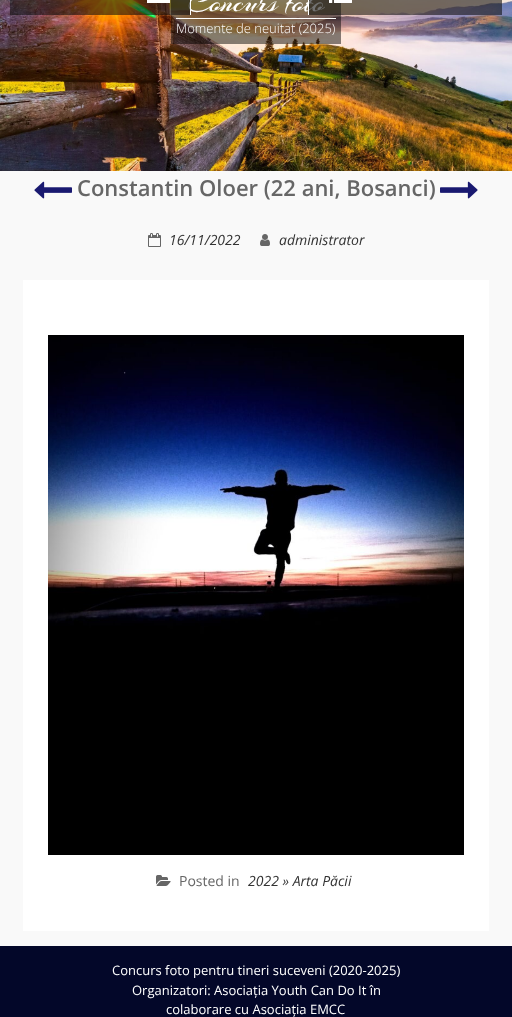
<!DOCTYPE html>
<meta charset="utf-8">
<style>body { margin: 0 } canvas { display: block }</style>
<canvas id="canvas" width="512" height="1017"></canvas>
<script type="module">
  const canvas = document.getElementById("canvas");
  const g = canvas.getContext("2d");
  g.miterLimit = 4;
  g.fontKerning = "normal";
  function drawText(s, x, y, [font, color]) {
    g.font = font;
    g.fillStyle = color;
    g.fillText(s, x, y);
  }
  function fillBox(x, y, w, h, color) {
    g.fillStyle = color;
    g.fillRect(x, y, w, h);
  }
  async function drawPicture(src, x, y, w, h) {
    const img = new Image();
    img.src = src;
    await img.decode();
    g.drawImage(img, x, y, w, h);
  }

  const s1 = ["30px Arizonia", "#FFFFFF"];
  const s2 = ["300 13px Open Sans", "#FFFFFF"];
  const s3 = ["600 22px Open Sans", "#666666"];
  const s4 = ["italic 14px Open Sans", "#333333"];
  const s5 = ["14px Open Sans", "#666666"];
  const s6 = ["13px Open Sans", "#FFFFFF"];

  fillBox(0, 0, 512, 1017, "#F9F9F9");
  await drawPicture("pic1.png", 0, 0, 512, 171);
  fillBox(171, 0, 170, 44, "rgba(0, 0, 0, 0.48)");
  drawText("Concurs foto", 188, 11, s1);
  fillBox(10, 0, 180, 15, "rgba(0, 0, 0, 0.19)");
  fillBox(190, 0, 1, 15, "#FFFFFF");
  fillBox(10, 0, 180, 15, "rgba(19, 18, 18, 0.49)");
  fillBox(147, 0, 23, 3, "#FFFFFF");
  fillBox(176, 18, 160, 1, "#FFFFFF");
  drawText("Momente de neuitat (2025)", 176, 33, s2);
  fillBox(309, 0, 193, 15, "rgba(0, 0, 0, 0.19)");
  fillBox(308, 0, 1, 15, "#FFFFFF");
  fillBox(309, 0, 193, 15, "rgba(19, 18, 18, 0.49)");
  await drawPicture("pic2.png", 329, 0, 23, 3);
  await drawPicture("pic3.png", 34, 181, 38, 18);
  drawText("Constantin Oloer (22 ani, Bosanci)", 77, 196, s3);
  await drawPicture("pic4.png", 440, 181, 38, 18);
  await drawPicture("pic5.png", 148, 233, 13, 14);
  drawText("16/11/2022", 169, 245, s4);
  await drawPicture("pic6.png", 260, 234, 10, 12);
  drawText("administrator", 279, 245, s4);
  g.fillStyle = "#DDDDDD";
  g.filter = "blur(0.5px)";
  g.beginPath();
  g.rect(23, 280, 466, 651);
  g.fill();
  g.filter = "none";
  fillBox(23, 280, 466, 651, "#FFFFFF");
  await drawPicture("pic7.png", 48, 335, 416, 520);
  await drawPicture("pic8.png", 156, 875, 15, 11);
  drawText("Posted in", 179, 886, s5);
  drawText("2022 » Arta Păcii", 248, 886, s4);
  fillBox(0, 946, 512, 71, "#030729");
  drawText("Concurs foto pentru tineri suceveni (2020-2025)", 112, 975, s6);
  drawText("Organizatori: Asociația Youth Can Do It în", 132, 995, s6);
  drawText("colaborare cu Asociația EMCC", 166, 1014, s6);
</script>
